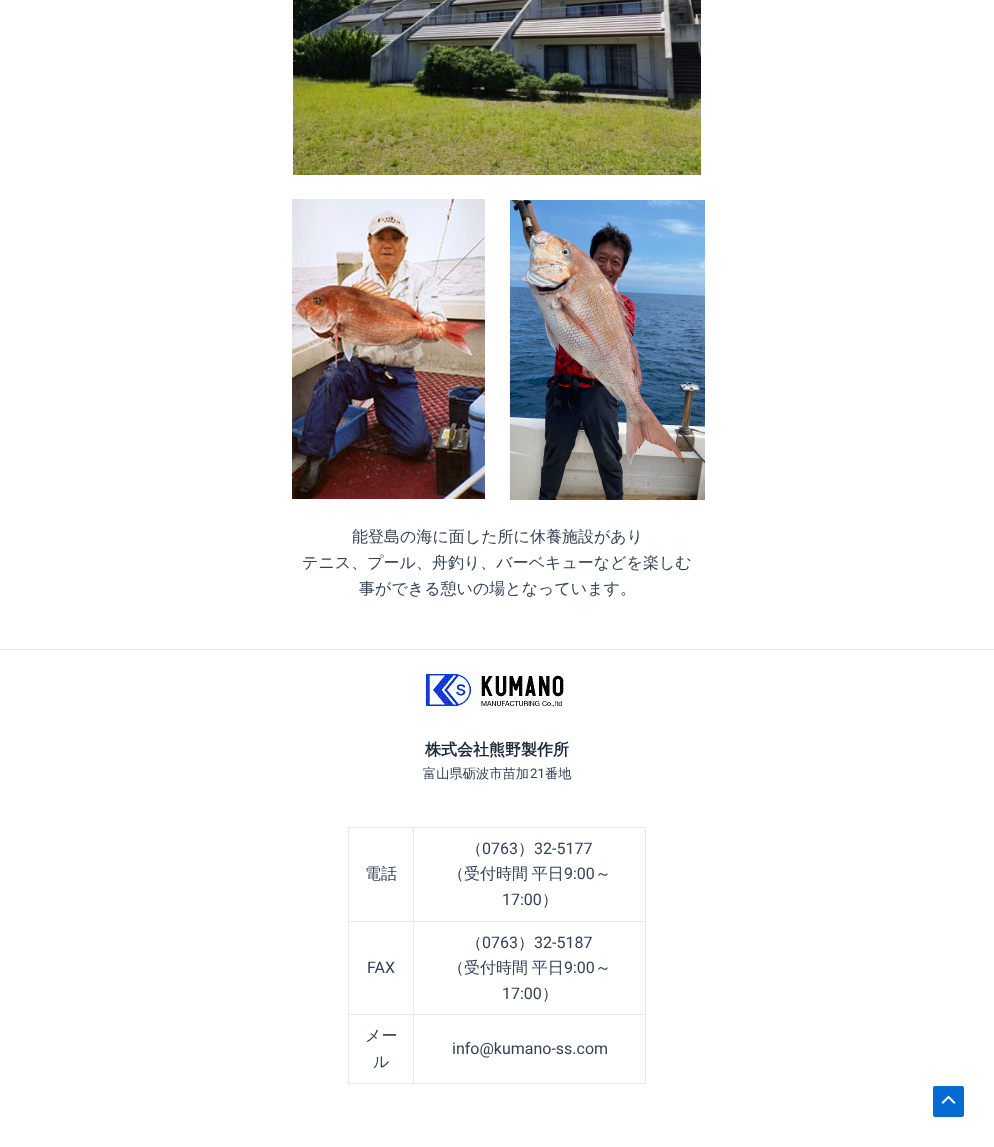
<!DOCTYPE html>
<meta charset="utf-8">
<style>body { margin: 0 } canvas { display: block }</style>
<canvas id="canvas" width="994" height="1147"></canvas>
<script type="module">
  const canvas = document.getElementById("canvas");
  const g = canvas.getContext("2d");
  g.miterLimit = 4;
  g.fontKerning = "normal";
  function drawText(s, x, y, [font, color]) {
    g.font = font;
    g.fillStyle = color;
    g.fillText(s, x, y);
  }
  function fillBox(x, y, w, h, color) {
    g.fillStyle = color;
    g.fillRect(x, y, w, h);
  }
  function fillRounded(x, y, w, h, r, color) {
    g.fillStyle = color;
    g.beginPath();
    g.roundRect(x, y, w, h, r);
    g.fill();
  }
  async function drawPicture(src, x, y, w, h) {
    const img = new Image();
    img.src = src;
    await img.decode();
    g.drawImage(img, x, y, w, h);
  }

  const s1 = ["500 16px WenQuanYi Zen Hei", "#334155"];
  const s2 = ["bold 16px WenQuanYi Zen Hei", "#1E293B"];
  const s3 = ["500 13.25px WenQuanYi Zen Hei", "#334155"];
  const s4 = ["13.25px Roboto", "#334155"];
  const s5 = ["16px Roboto", "#334155"];

  fillBox(0, 0, 994, 1147, "#FFFFFF");
  await drawPicture("pic1.png", 293, 0, 408, 175);
  await drawPicture("pic2.png", 292, 199, 193, 300);
  await drawPicture("pic3.png", 509, 199, 196, 301);
  drawText("能登島の海に面した所に休養施設があり", 352, 542, s1);
  drawText("テニス、プール、舟釣り、バーベキューなどを楽しむ", 302, 568, s1);
  drawText("事ができる憩いの場となっています。", 359, 594, s1);
  fillBox(0, 649, 994, 1, "#E2E8F0");
  await drawPicture("pic4.png", 426, 674, 138, 33);
  drawText("株式会社熊野製作所", 425, 755, s2);
  drawText("富山県砺波市苗加", 423, 778, s3);
  drawText("21", 530, 778, s4);
  drawText("番地", 545, 778, s3);
  fillBox(348, 827, 298, 1, "#E2E8F0");
  fillBox(348, 827, 1, 257, "#E2E8F0");
  fillBox(413, 828, 1, 256, "#E2E8F0");
  fillBox(349, 921, 65, 1, "#E2E8F0");
  drawText("電話", 365, 879, s1);
  fillBox(645, 828, 1, 256, "#E2E8F0");
  fillBox(414, 921, 232, 1, "#E2E8F0");
  drawText("（", 466, 854, s1);
  drawText("0763", 482, 854, s5);
  drawText("）", 518, 854, s1);
  drawText("32-5177", 534, 854, s5);
  g.wordSpacing = "-1px";
  drawText("（受付時間 平日", 448, 879, s1);
  g.wordSpacing = "0px";
  drawText("9:00", 564, 879, s5);
  drawText("～", 595, 879, s1);
  drawText("17:00", 502, 905, s5);
  drawText("）", 542, 905, s1);
  fillBox(349, 1014, 297, 1, "#E2E8F0");
  drawText("FAX", 367, 973, s5);
  drawText("（", 466, 948, s1);
  drawText("0763", 482, 948, s5);
  drawText("）", 518, 948, s1);
  drawText("32-5187", 534, 948, s5);
  g.wordSpacing = "-1px";
  drawText("（受付時間 平日", 448, 973, s1);
  g.wordSpacing = "0px";
  drawText("9:00", 564, 973, s5);
  drawText("～", 595, 973, s1);
  drawText("17:00", 502, 999, s5);
  drawText("）", 542, 999, s1);
  fillBox(349, 1083, 297, 1, "#E2E8F0");
  drawText("メー", 365, 1041, s1);
  drawText("ル", 373, 1067, s1);
  drawText("info@kumano-ss.com", 452, 1054, s5);
  fillRounded(933, 1086, 31, 31, 2, "#046BD2");
  await drawPicture("pic5.png", 941, 1095, 15, 9);
</script>
